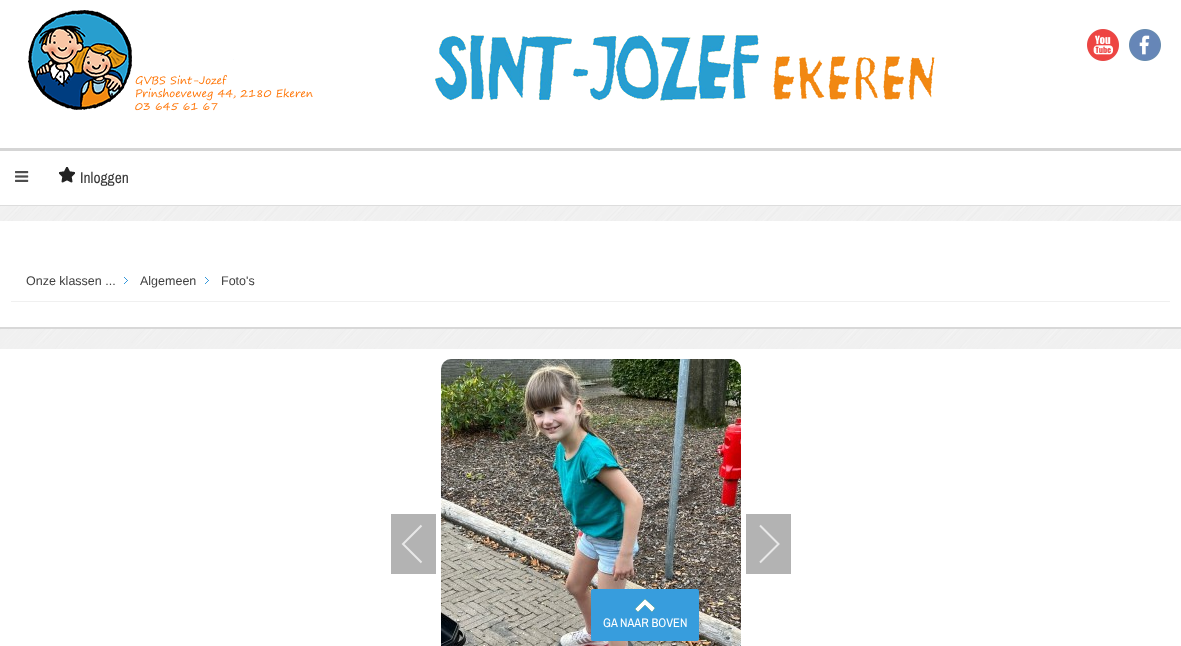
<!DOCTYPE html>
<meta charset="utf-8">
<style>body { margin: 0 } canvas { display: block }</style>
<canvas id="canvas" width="1181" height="646"></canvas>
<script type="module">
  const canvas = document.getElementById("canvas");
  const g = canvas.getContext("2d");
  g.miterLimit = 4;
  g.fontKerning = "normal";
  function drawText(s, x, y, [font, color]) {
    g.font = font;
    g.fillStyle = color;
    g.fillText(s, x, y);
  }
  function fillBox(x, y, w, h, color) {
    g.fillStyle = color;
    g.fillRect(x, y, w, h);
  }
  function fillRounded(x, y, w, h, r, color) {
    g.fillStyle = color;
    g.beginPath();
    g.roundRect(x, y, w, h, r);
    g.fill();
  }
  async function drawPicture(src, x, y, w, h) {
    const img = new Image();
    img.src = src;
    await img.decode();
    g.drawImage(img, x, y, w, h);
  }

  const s1 = ["15.5px Archivo Narrow", "#363636"];
  const s2 = ["12.5px Liberation Sans", "#404040"];
  const s3 = ["12.5px Archivo Narrow", "#FFFFFF"];

  fillBox(0, 0, 1181, 646, "#FFFFFF");
  await drawPicture("pic1.png", 28, 10, 285, 101);
  await drawPicture("pic2.png", 435, 35, 500, 66);
  await drawPicture("pic3.png", 1087, 29, 32, 32);
  await drawPicture("pic4.png", 1129, 29, 32, 32);
  fillBox(0, 148, 1181, 3, "#D5D5D5");
  fillBox(0, 205, 1181, 1, "#DDDDDD");
  await drawPicture("pic5.png", 15, 171, 14, 11);
  await drawPicture("pic6.png", 59, 167, 16, 16);
  drawText("Inloggen", 80, 183, s1);
  await drawPicture("pic7.png", 0, 206, 1181, 143);
  fillBox(0, 221, 1181, 106, "#FFFFFF");
  fillBox(0, 327, 1181, 2, "#D8D8D8");
  fillBox(11, 301, 1159, 1, "#F0F0F0");
  drawText("Onze klassen ...", 26, 285, s2);
  await drawPicture("pic8.png", 124, 277, 4, 7);
  drawText("Algemeen", 140, 285, s2);
  await drawPicture("pic8.png", 205, 277, 4, 7);
  drawText("Foto's", 221, 285, s2);
  fillBox(391, 514, 45, 60, "#B3B3B3");
  g.beginPath();
  g.moveTo(421.5, 525.5);
  g.lineTo(403, 544);
  g.lineTo(421.5, 562.5);
  g.strokeStyle = "#E8E8E8";
  g.lineWidth = 2;
  g.stroke();
  await drawPicture("pic9.png", 441, 359, 300, 287);
  fillBox(746, 514, 45, 60, "#B3B3B3");
  g.beginPath();
  g.moveTo(760, 562.5);
  g.lineTo(778.5, 544);
  g.lineTo(760, 525.5);
  g.stroke();
  fillRounded(591, 589, 108, 52, 2, "#379DDD");
  await drawPicture("pic10.png", 635, 599, 20, 13);
  drawText("GA NAAR BOVEN", 603, 627, s3);
</script>
